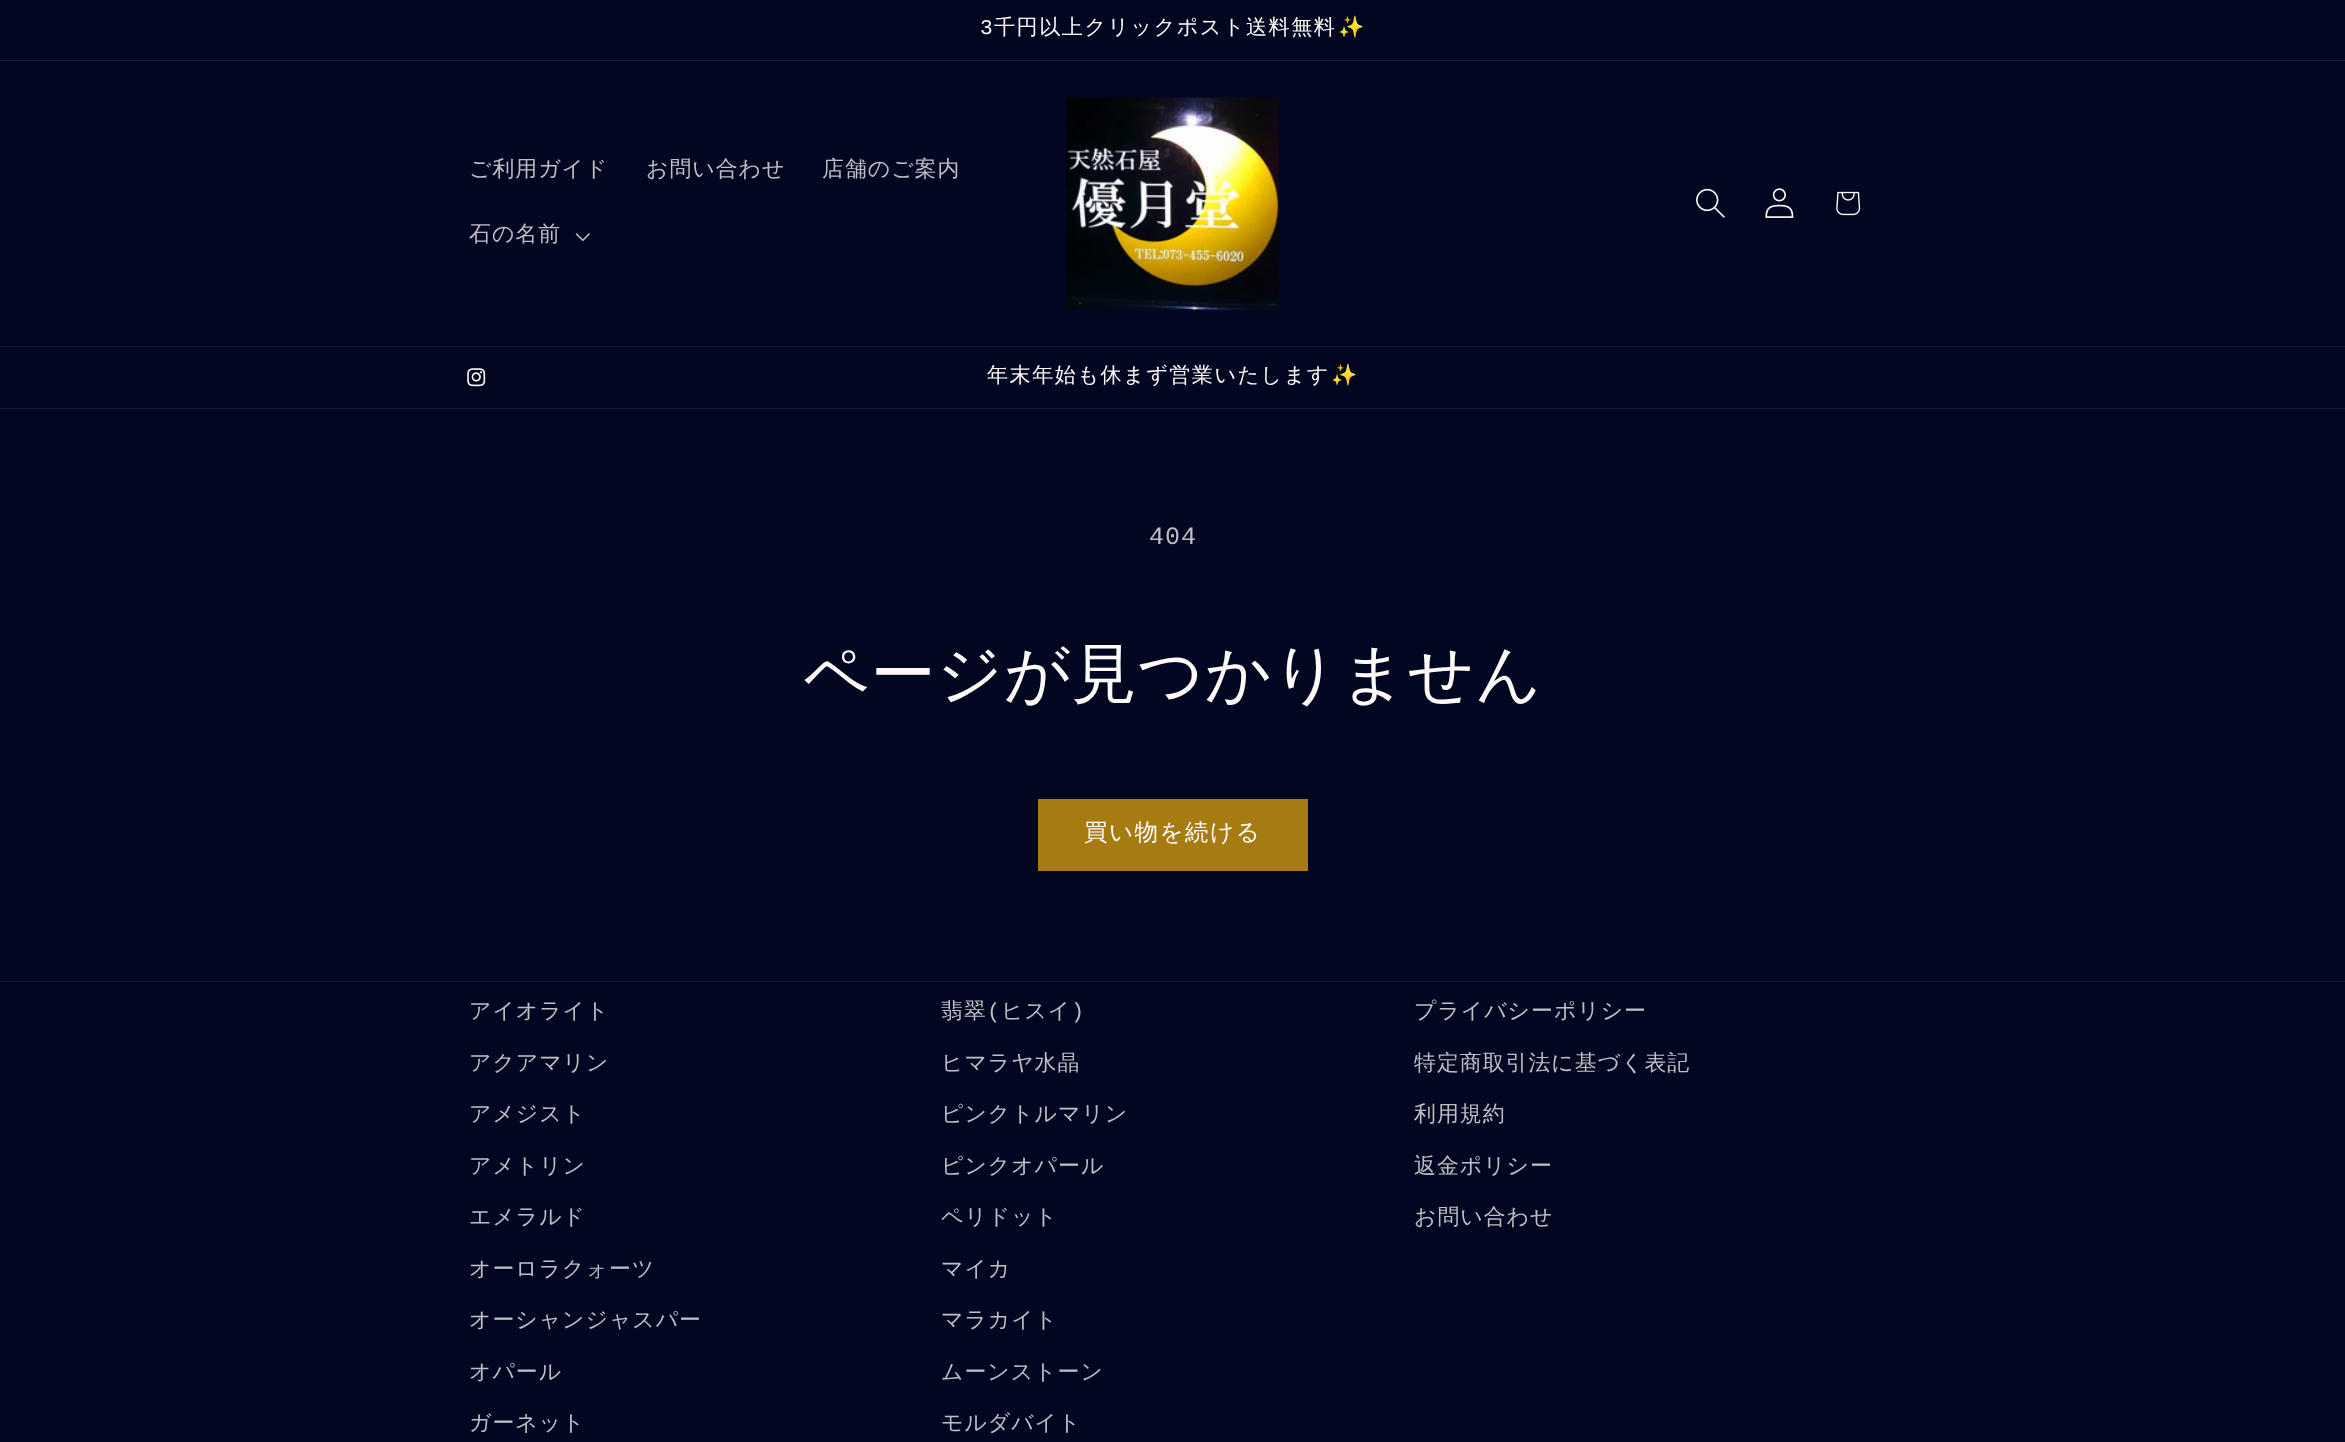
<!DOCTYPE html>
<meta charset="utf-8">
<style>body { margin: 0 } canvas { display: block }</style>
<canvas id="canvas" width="2345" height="1442"></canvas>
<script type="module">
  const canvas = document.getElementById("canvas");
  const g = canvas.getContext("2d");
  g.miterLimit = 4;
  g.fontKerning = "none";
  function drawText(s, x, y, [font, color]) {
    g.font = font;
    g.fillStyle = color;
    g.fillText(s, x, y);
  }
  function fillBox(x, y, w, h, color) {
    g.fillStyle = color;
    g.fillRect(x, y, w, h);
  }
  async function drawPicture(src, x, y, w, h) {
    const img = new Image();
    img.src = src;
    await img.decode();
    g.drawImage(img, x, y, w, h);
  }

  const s1 = ["21.1px Liberation Mono", "#FFFAFA"];
  const s2 = ["500 21.1px WenQuanYi Zen Hei", "#FFFAFA"];
  const s3 = ["21.1px Noto Color Emoji", "#FFFAFA"];
  const s4 = ["500 21.9px WenQuanYi Zen Hei", "#C0BDC4"];
  const s5 = ["25px Liberation Mono", "#C0BDC4"];
  const s6 = ["500 65px WenQuanYi Zen Hei", "#FFFAFA"];
  const s7 = ["500 23.5px WenQuanYi Zen Hei", "#FFFAFA"];
  const s8 = ["21.9px Liberation Mono", "#C0BDC4"];

  fillBox(0, 0, 2345, 1442, "#020721");
  fillBox(0, 60, 2345, 1, "#161A32");
  g.letterSpacing = "1.5px";
  drawText("3", 980, 34, s1);
  drawText("千円以上クリックポスト送料無料", 994, 34, s2);
  drawText("✨", 1338, 34, s3);
  fillBox(0, 346, 2345, 1, "#161A32");
  g.letterSpacing = "1px";
  drawText("ご利用ガイド", 469, 176, s4);
  drawText("お問い合わせ", 646, 176, s4);
  drawText("店舗のご案内", 822, 176, s4);
  drawText("石の名前", 469, 241, s4);
  await drawPicture("pic1.png", 575, 233, 15, 8);
  await drawPicture("pic2.png", 1066, 97, 213, 213);
  await drawPicture("pic3.png", 1696, 188, 29, 30);
  await drawPicture("pic4.png", 1765, 188, 29, 30);
  await drawPicture("pic5.png", 1836, 191, 25, 25);
  fillBox(0, 408, 2345, 1, "#161A32");
  await drawPicture("pic6.png", 467, 368, 19, 19);
  g.letterSpacing = "1.5px";
  drawText("年末年始も休まず営業いたします", 987, 382, s2);
  drawText("✨", 1331, 382, s3);
  g.letterSpacing = "1px";
  drawText("404", 1149, 544, s5);
  drawText("ページが見つかりません", 803, 696, s6);
  fillBox(1038, 799, 270, 72, "#A67C12");
  g.letterSpacing = "1.5px";
  drawText("買い物を続ける", 1084, 840, s7);
  fillBox(0, 981, 2345, 1, "#161A32");
  g.letterSpacing = "1px";
  drawText("アイオライト", 469, 1018, s4);
  drawText("アクアマリン", 469, 1070, s4);
  drawText("アメジスト", 469, 1121, s4);
  drawText("アメトリン", 469, 1173, s4);
  drawText("エメラルド", 469, 1224, s4);
  drawText("オーロラクォーツ", 469, 1276, s4);
  drawText("オーシャンジャスパー", 469, 1327, s4);
  drawText("オパール", 469, 1379, s4);
  drawText("ガーネット", 469, 1430, s4);
  drawText("翡翠", 941, 1018, s4);
  drawText("(", 987, 1018, s8);
  drawText("ヒスイ", 1001, 1018, s4);
  drawText(")", 1071, 1018, s8);
  drawText("ヒマラヤ水晶", 941, 1070, s4);
  drawText("ピンクトルマリン", 941, 1121, s4);
  drawText("ピンクオパール", 941, 1173, s4);
  drawText("ペリドット", 941, 1224, s4);
  drawText("マイカ", 941, 1276, s4);
  drawText("マラカイト", 941, 1327, s4);
  drawText("ムーンストーン", 941, 1379, s4);
  drawText("モルダバイト", 941, 1430, s4);
  drawText("プライバシーポリシー", 1414, 1018, s4);
  drawText("特定商取引法に基づく表記", 1414, 1070, s4);
  drawText("利用規約", 1414, 1121, s4);
  drawText("返金ポリシー", 1414, 1173, s4);
  drawText("お問い合わせ", 1414, 1224, s4);
</script>
